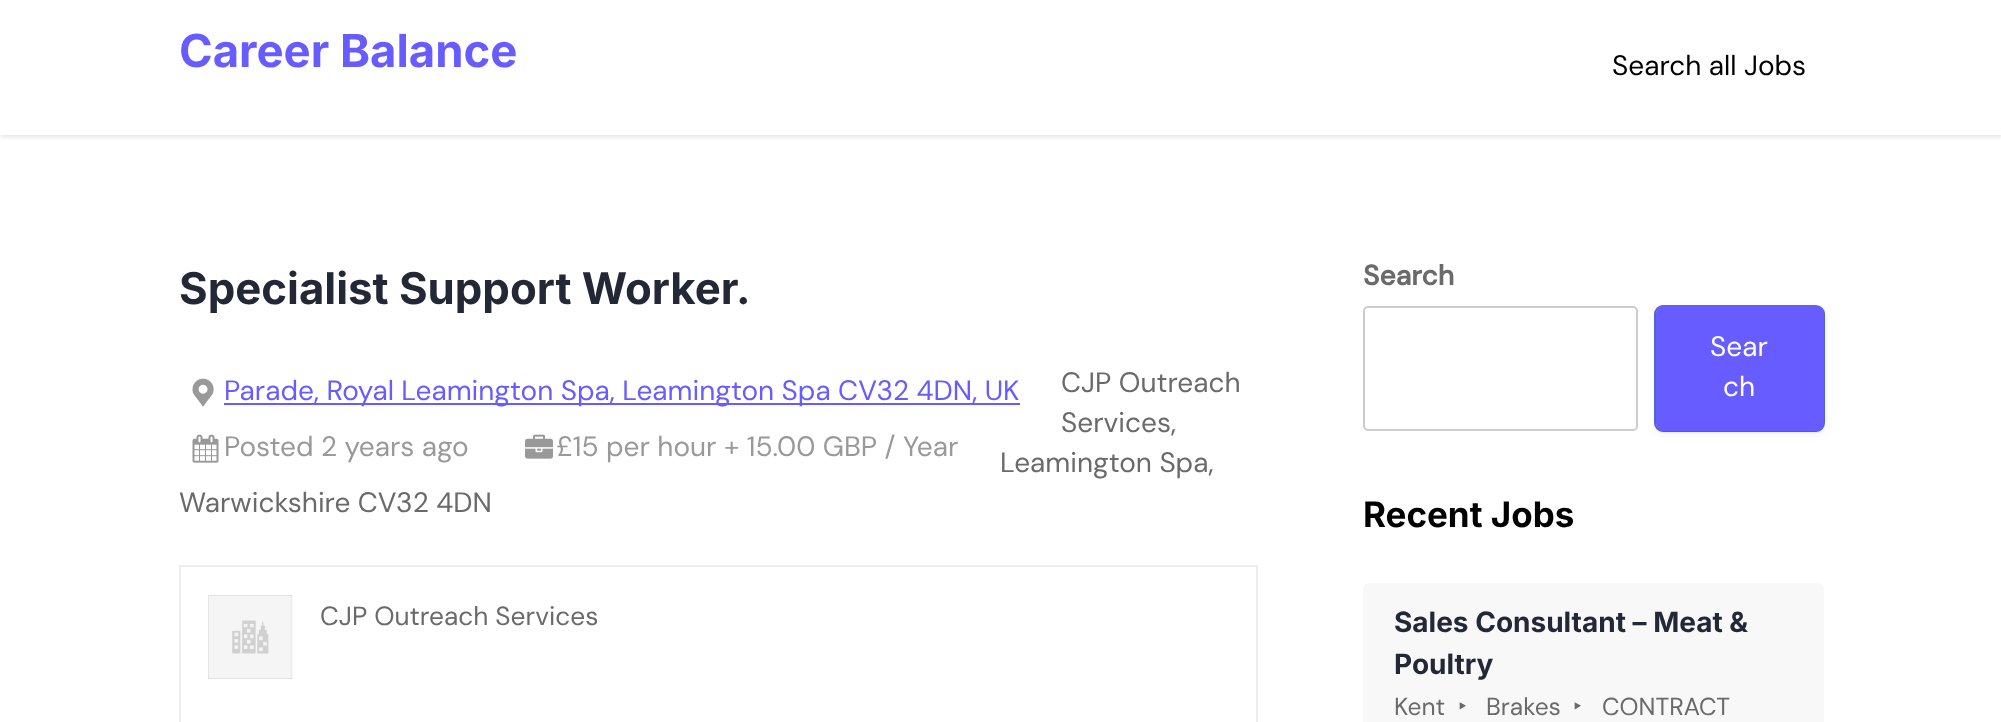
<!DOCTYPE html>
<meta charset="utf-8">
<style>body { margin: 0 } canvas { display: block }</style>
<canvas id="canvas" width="2001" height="722"></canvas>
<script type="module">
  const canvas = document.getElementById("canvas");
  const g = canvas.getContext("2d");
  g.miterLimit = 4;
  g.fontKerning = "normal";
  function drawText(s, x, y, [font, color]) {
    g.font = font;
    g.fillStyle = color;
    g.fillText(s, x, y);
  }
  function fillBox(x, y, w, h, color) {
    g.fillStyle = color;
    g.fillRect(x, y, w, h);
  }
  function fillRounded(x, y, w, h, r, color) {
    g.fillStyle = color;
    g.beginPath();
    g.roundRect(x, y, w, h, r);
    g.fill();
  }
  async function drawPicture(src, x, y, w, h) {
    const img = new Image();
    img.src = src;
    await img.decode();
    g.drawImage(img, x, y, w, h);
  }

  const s1 = ["bold 45.5px Inter", "#675CFF"];
  const s2 = ["28px DM Sans", "#000000"];
  const s3 = ["bold 43.75px Inter", "#232837"];
  const s4 = ["28px DM Sans", "#6A6A6A"];
  const s5 = ["28px DM Sans", "#675CFF"];
  const s6 = ["28px DM Sans", "#999999"];
  const s7 = ["26.25px DM Sans", "#6A6A6A"];
  const s8 = ["bold 28px DM Sans", "#6A6A6A"];
  const s9 = ["28px DM Sans", "#FFFFFF"];
  const s10 = ["bold 35px Inter", "#000000"];
  const s11 = ["bold 28px Inter", "#232837"];
  const s12 = ["24.5px DM Sans", "#6A6A6A"];
  const s13 = ["24.5px Noto Sans", "#6A6A6A"];

  fillBox(0, 0, 2001, 722, "#FFFFFF");
  g.save();
  g.beginPath();
  g.moveTo(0, 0);
  g.lineTo(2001, 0);
  g.lineTo(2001, 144);
  g.lineTo(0, 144);
  g.closePath();
  g.moveTo(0, 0);
  g.lineTo(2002, 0);
  g.lineTo(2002, 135);
  g.lineTo(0, 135);
  g.closePath();
  g.clip("evenodd");
  g.fillStyle = "rgba(0, 0, 0, 0.1)";
  g.filter = "blur(2px)";
  g.beginPath();
  g.rect(0, 2, 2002, 135);
  g.fill();
  g.filter = "none";
  g.restore();
  drawText("Career Balance", 179, 67, s1);
  drawText("Search all Jobs", 1612, 75, s2);
  drawText("Specialist Support Worker.", 179, 304, s3);
  drawText("CJP Outreach", 1061, 392, s4);
  drawText("Services,", 1061, 432, s4);
  drawText("Leamington Spa,", 1000, 472, s4);
  drawText("Warwickshire CV32 4DN", 179, 512, s4);
  await drawPicture("pic1.png", 192, 378, 22, 29);
  fillBox(224, 403, 796, 2, "#675CFF");
  drawText("Parade, Royal Leamington Spa, Leamington Spa CV32 4DN, UK", 224, 400, s5);
  await drawPicture("pic2.png", 192, 434, 27, 29);
  drawText("Posted 2 years ago", 224, 456, s6);
  await drawPicture("pic3.png", 525, 434, 28, 25);
  drawText("£15 per hour + 15.00 GBP / Year", 556, 456, s6);
  g.strokeStyle = "#EEEEEE";
  g.lineWidth = 2;
  g.strokeRect(180, 566, 1077, 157);
  await drawPicture("pic4.png", 208, 595, 85, 84);
  drawText("CJP Outreach Services", 320, 625, s7);
  drawText("Search", 1363, 285, s8);
  g.beginPath();
  g.roundRect(1364, 307, 273, 123, 4);
  g.strokeStyle = "#CCCCCC";
  g.stroke();
  g.fillStyle = "rgba(60, 66, 87, 0.08)";
  g.filter = "blur(4.5px)";
  g.beginPath();
  g.roundRect(1656, 310, 168, 124, 7);
  g.fill();
  g.filter = "none";
  g.beginPath();
  g.roundRect(1655, 306, 169, 125, 8);
  g.strokeStyle = "#5469D4";
  g.stroke();
  g.fillStyle = "rgba(0, 0, 0, 0.12)";
  g.filter = "blur(1px)";
  g.beginPath();
  g.roundRect(1656, 308, 168, 124, 7);
  g.fill();
  g.filter = "none";
  fillRounded(1656, 306, 168, 125, 7, "#675CFF");
  drawText("Sear", 1710, 356, s9);
  drawText("ch", 1723, 396, s9);
  drawText("Recent Jobs", 1363, 527, s10);
  fillRounded(1363, 583, 461, 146, 7, "#F8F8F8");
  drawText("Sales Consultant – Meat &", 1394, 632, s11);
  drawText("Poultry", 1394, 674, s11);
  drawText("Kent", 1394, 715, s12);
  drawText("‣", 1458, 715, s13);
  drawText("Brakes", 1486, 715, s12);
  drawText("‣", 1573, 715, s13);
  drawText("CONTRACT", 1602, 715, s12);
</script>
